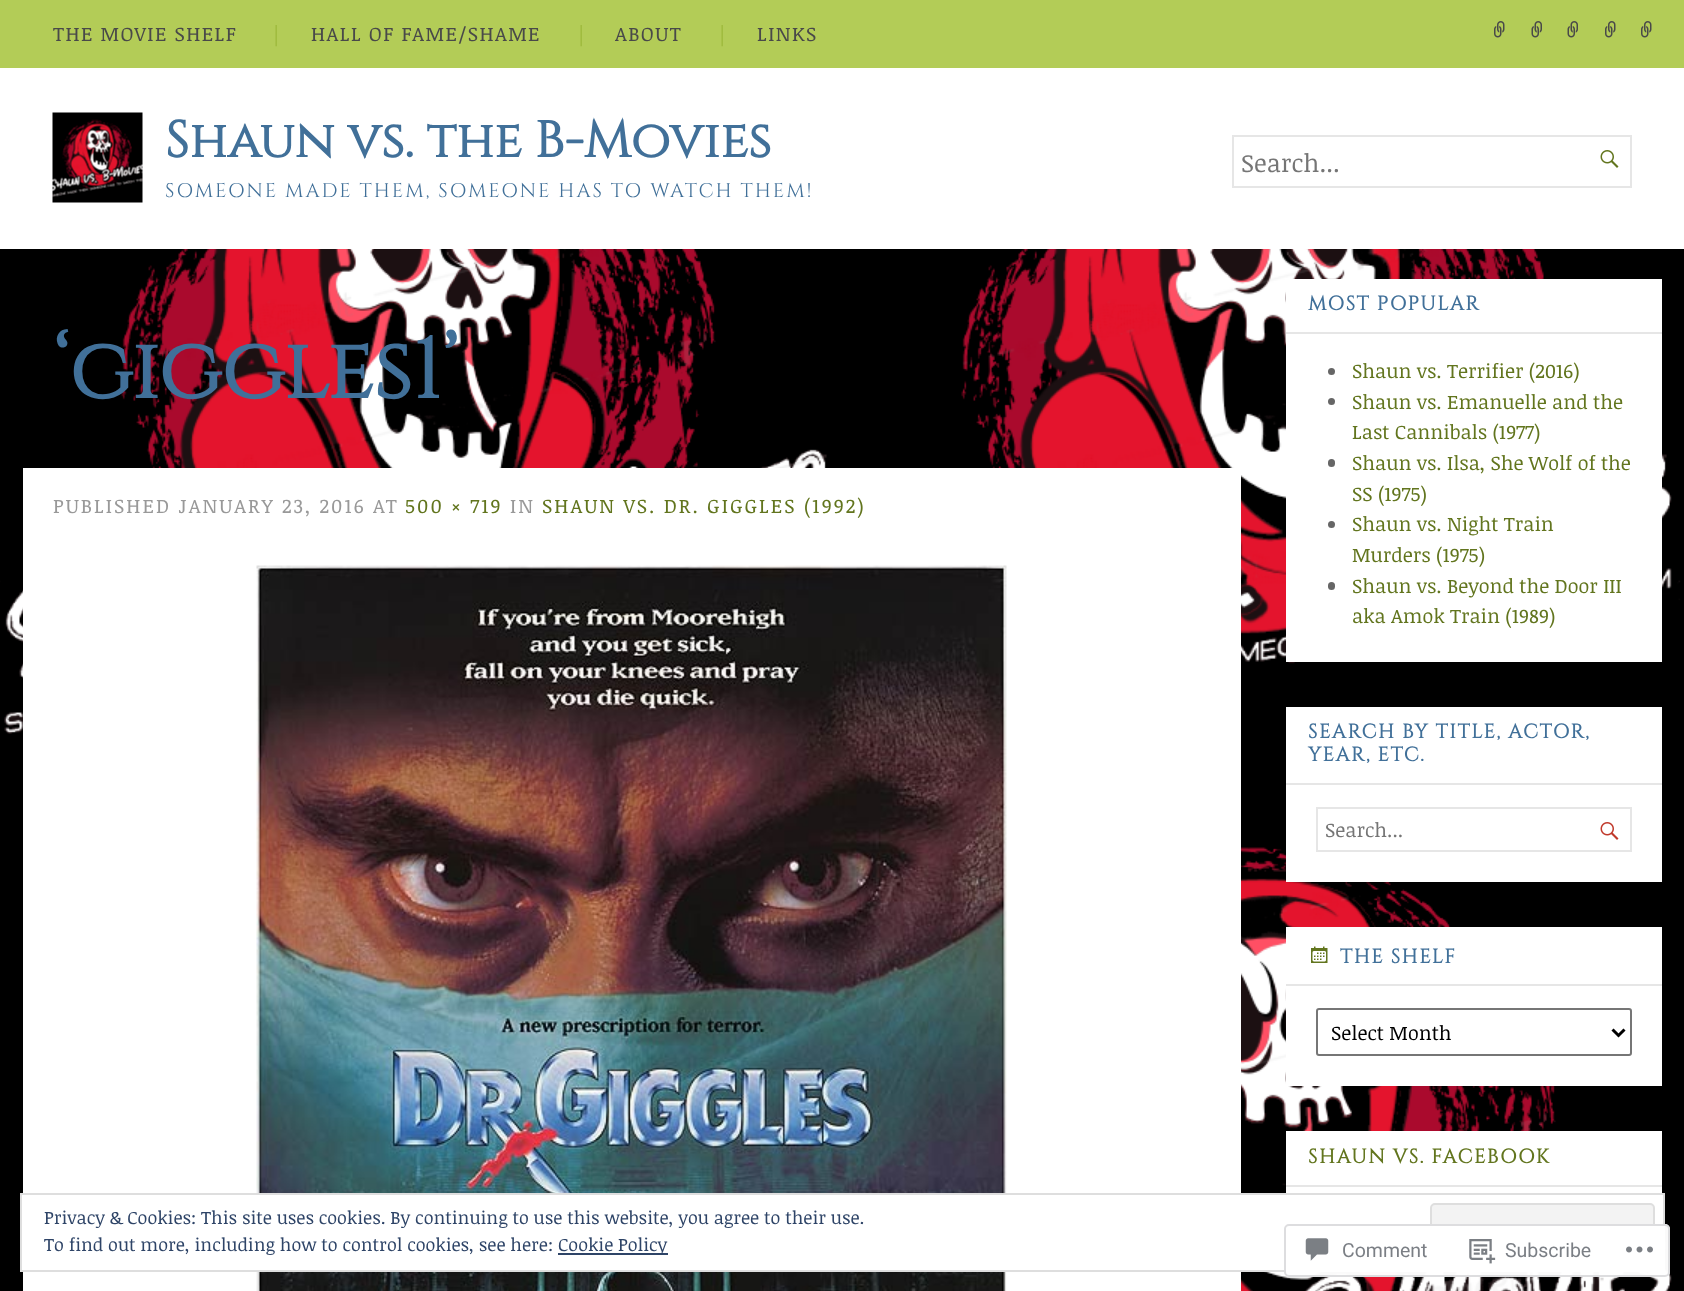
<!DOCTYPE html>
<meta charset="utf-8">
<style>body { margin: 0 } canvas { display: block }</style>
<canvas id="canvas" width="1684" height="1291"></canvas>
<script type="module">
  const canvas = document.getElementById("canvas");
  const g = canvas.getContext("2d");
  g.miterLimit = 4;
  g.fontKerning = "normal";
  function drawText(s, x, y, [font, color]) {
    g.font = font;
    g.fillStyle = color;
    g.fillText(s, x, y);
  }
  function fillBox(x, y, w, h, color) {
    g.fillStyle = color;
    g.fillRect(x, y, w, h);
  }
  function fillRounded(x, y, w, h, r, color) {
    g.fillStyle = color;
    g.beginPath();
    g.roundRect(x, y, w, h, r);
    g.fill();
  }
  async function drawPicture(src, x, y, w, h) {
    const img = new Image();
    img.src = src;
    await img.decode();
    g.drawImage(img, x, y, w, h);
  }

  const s1 = ["19.8px Noticia Text", "#494949"];
  const s2 = ["19.8px Noticia Text", "#9BB738"];
  const s3 = ["bold 51px Cinzel", "#417099"];
  const s4 = ["19.8px Cinzel", "#417099"];
  const s5 = ["25px Noticia Text", "#757575"];
  const s6 = ["bold 85px Cinzel", "#417099"];
  const s7 = ["19.8px Noticia Text", "#999999"];
  const s8 = ["19.8px Noticia Text", "#62751E"];
  const s9 = ["bold 19.8px Cinzel", "#417099"];
  const s10 = ["19.8px Noticia Text", "#757575"];
  const s11 = ["19.8px Noticia Text", "#000000"];
  const s12 = ["bold 19.8px Cinzel", "#62751E"];
  const s13 = ["18px Noticia Text", "#2E4467"];
  const s14 = ["19.5px Roboto", "#7B7F85"];

  fillBox(0, 0, 1684, 1291, "#FFFFFF");
  await drawPicture("pic1.png", 0, 249, 1684, 1042);
  fillBox(0, 0, 1684, 68, "#B3CC57");
  g.letterSpacing = "1.4px";
  drawText("THE MOVIE SHELF", 53, 41, s1);
  drawText("|", 273, 41, s2);
  drawText("HALL OF FAME/SHAME", 311, 41, s1);
  drawText("|", 578, 41, s2);
  drawText("ABOUT", 615, 41, s1);
  drawText("|", 719, 41, s2);
  drawText("LINKS", 757, 41, s1);
  await drawPicture("pic2.png", 1494, 21, 11, 17);
  await drawPicture("pic3.png", 1531, 21, 11, 17);
  await drawPicture("pic3.png", 1567, 21, 11, 17);
  await drawPicture("pic2.png", 1605, 21, 11, 17);
  await drawPicture("pic2.png", 1641, 21, 11, 17);
  await drawPicture("pic4.png", 52, 112, 91, 91);
  g.letterSpacing = "0px";
  drawText("Shaun vs. the B-Movies", 165, 157, s3);
  g.letterSpacing = "2px";
  drawText("SOMEONE MADE THEM, SOMEONE HAS TO WATCH THEM!", 165, 197, s4);
  g.strokeStyle = "#E6E6E6";
  g.lineWidth = 2;
  g.strokeRect(1233, 136, 398, 51);
  g.letterSpacing = "0px";
  drawText("Search...", 1241, 172, s5);
  await drawPicture("pic5.png", 1600, 150, 19, 18);
  drawText("‘giggles1’", 53, 398, s6);
  fillBox(23, 468, 1218, 823, "#FFFFFF");
  g.letterSpacing = "2px";
  drawText("PUBLISHED JANUARY 23, 2016 AT", 53, 513, s7);
  drawText("500 × 719", 405, 513, s8);
  drawText("IN", 510, 513, s7);
  drawText("SHAUN VS. DR. GIGGLES (1992)", 542, 513, s8);
  await drawPicture("pic6.png", 256, 565, 751, 726);
  fillBox(1286, 279, 376, 383, "#FFFFFF");
  fillBox(1286, 332, 376, 2, "#E6E6E6");
  g.letterSpacing = "1.5px";
  drawText("MOST POPULAR", 1308, 310, s9);
  g.fillStyle = "#666666";
  g.beginPath();
  g.arc(1331.5, 371.5, 3.5, 0, Math.PI * 2);
  g.fill();
  g.letterSpacing = "0px";
  drawText("Shaun vs. Terrifier (2016)", 1352, 378, s8);
  g.fillStyle = "#666666";
  g.beginPath();
  g.arc(1331.5, 401.5, 3.5, 0, Math.PI * 2);
  g.fill();
  drawText("Shaun vs. Emanuelle and the", 1352, 409, s8);
  drawText("Last Cannibals (1977)", 1352, 439, s8);
  fillRounded(1328, 459, 7, 8, 3.5, "#666666");
  drawText("Shaun vs. Ilsa, She Wolf of the", 1352, 470, s8);
  drawText("SS (1975)", 1352, 501, s8);
  g.fillStyle = "#666666";
  g.beginPath();
  g.arc(1331.5, 524.5, 3.5, 0, Math.PI * 2);
  g.fill();
  drawText("Shaun vs. Night Train", 1352, 531, s8);
  drawText("Murders (1975)", 1352, 562, s8);
  fillRounded(1328, 582, 7, 8, 3.5, "#666666");
  drawText("Shaun vs. Beyond the Door III", 1352, 593, s8);
  drawText("aka Amok Train (1989)", 1352, 623, s8);
  fillBox(1286, 707, 376, 175, "#FFFFFF");
  fillBox(1286, 783, 376, 2, "#E6E6E6");
  g.letterSpacing = "1.5px";
  drawText("SEARCH BY TITLE, ACTOR,", 1308, 738, s9);
  drawText("YEAR, ETC.", 1308, 761, s9);
  g.strokeRect(1317, 808, 314, 43);
  g.letterSpacing = "0px";
  drawText("Search...", 1325, 837, s10);
  await drawPicture("pic7.png", 1600, 822, 19, 18);
  fillBox(1286, 927, 376, 159, "#FFFFFF");
  fillBox(1286, 984, 376, 2, "#E6E6E6");
  await drawPicture("pic8.png", 1311, 946, 17, 17);
  g.letterSpacing = "1.5px";
  drawText("THE SHELF", 1340, 963, s9);
  g.beginPath();
  g.roundRect(1317, 1009, 314, 46, 2);
  g.strokeStyle = "#767676";
  g.stroke();
  g.beginPath();
  g.moveTo(1612.5, 1029.5);
  g.lineTo(1618.5, 1035.5);
  g.lineTo(1624.5, 1029.5);
  g.strokeStyle = "#000000";
  g.lineWidth = 3;
  g.stroke();
  g.letterSpacing = "0px";
  drawText("Select Month", 1331, 1040, s11);
  fillBox(1286, 1131, 376, 62, "#FFFFFF");
  fillBox(1286, 1185, 376, 2, "#E6E6E6");
  g.letterSpacing = "1.5px";
  drawText("SHAUN VS. FACEBOOK", 1308, 1163, s12);
  g.fillStyle = "#FFFFFF";
  g.beginPath();
  g.rect(21, 1194, 1643, 77);
  g.fill();
  g.strokeStyle = "#DEDEDE";
  g.lineWidth = 2;
  g.stroke();
  g.letterSpacing = "0px";
  drawText("Privacy & Cookies: This site uses cookies. By continuing to use this website, you agree to their use.", 44, 1224, s13);
  g.fillStyle = "#F3F3F3";
  g.beginPath();
  g.roundRect(1431, 1204, 223, 57, 4);
  g.fill();
  g.stroke();
  drawText("To find out more, including how to control cookies, see here:", 44, 1251, s13);
  fillBox(558, 1253, 110, 2, "#2E4467");
  drawText("Cookie Policy", 558, 1251, s13);
  fillRounded(1284, 1224, 386, 53, 5, "rgba(255, 255, 255, 0.98)");
  g.beginPath();
  g.roundRect(1285, 1225, 384, 51, 4);
  g.strokeStyle = "rgba(220, 220, 222, 0.98)";
  g.stroke();
  await drawPicture("pic9.png", 1305, 1238, 24, 23);
  drawText("Comment", 1342, 1257, s14);
  await drawPicture("pic10.png", 1469, 1239, 27, 25);
  drawText("Subscribe", 1505, 1257, s14);
  await drawPicture("pic11.png", 1626, 1246, 27, 7);
</script>
